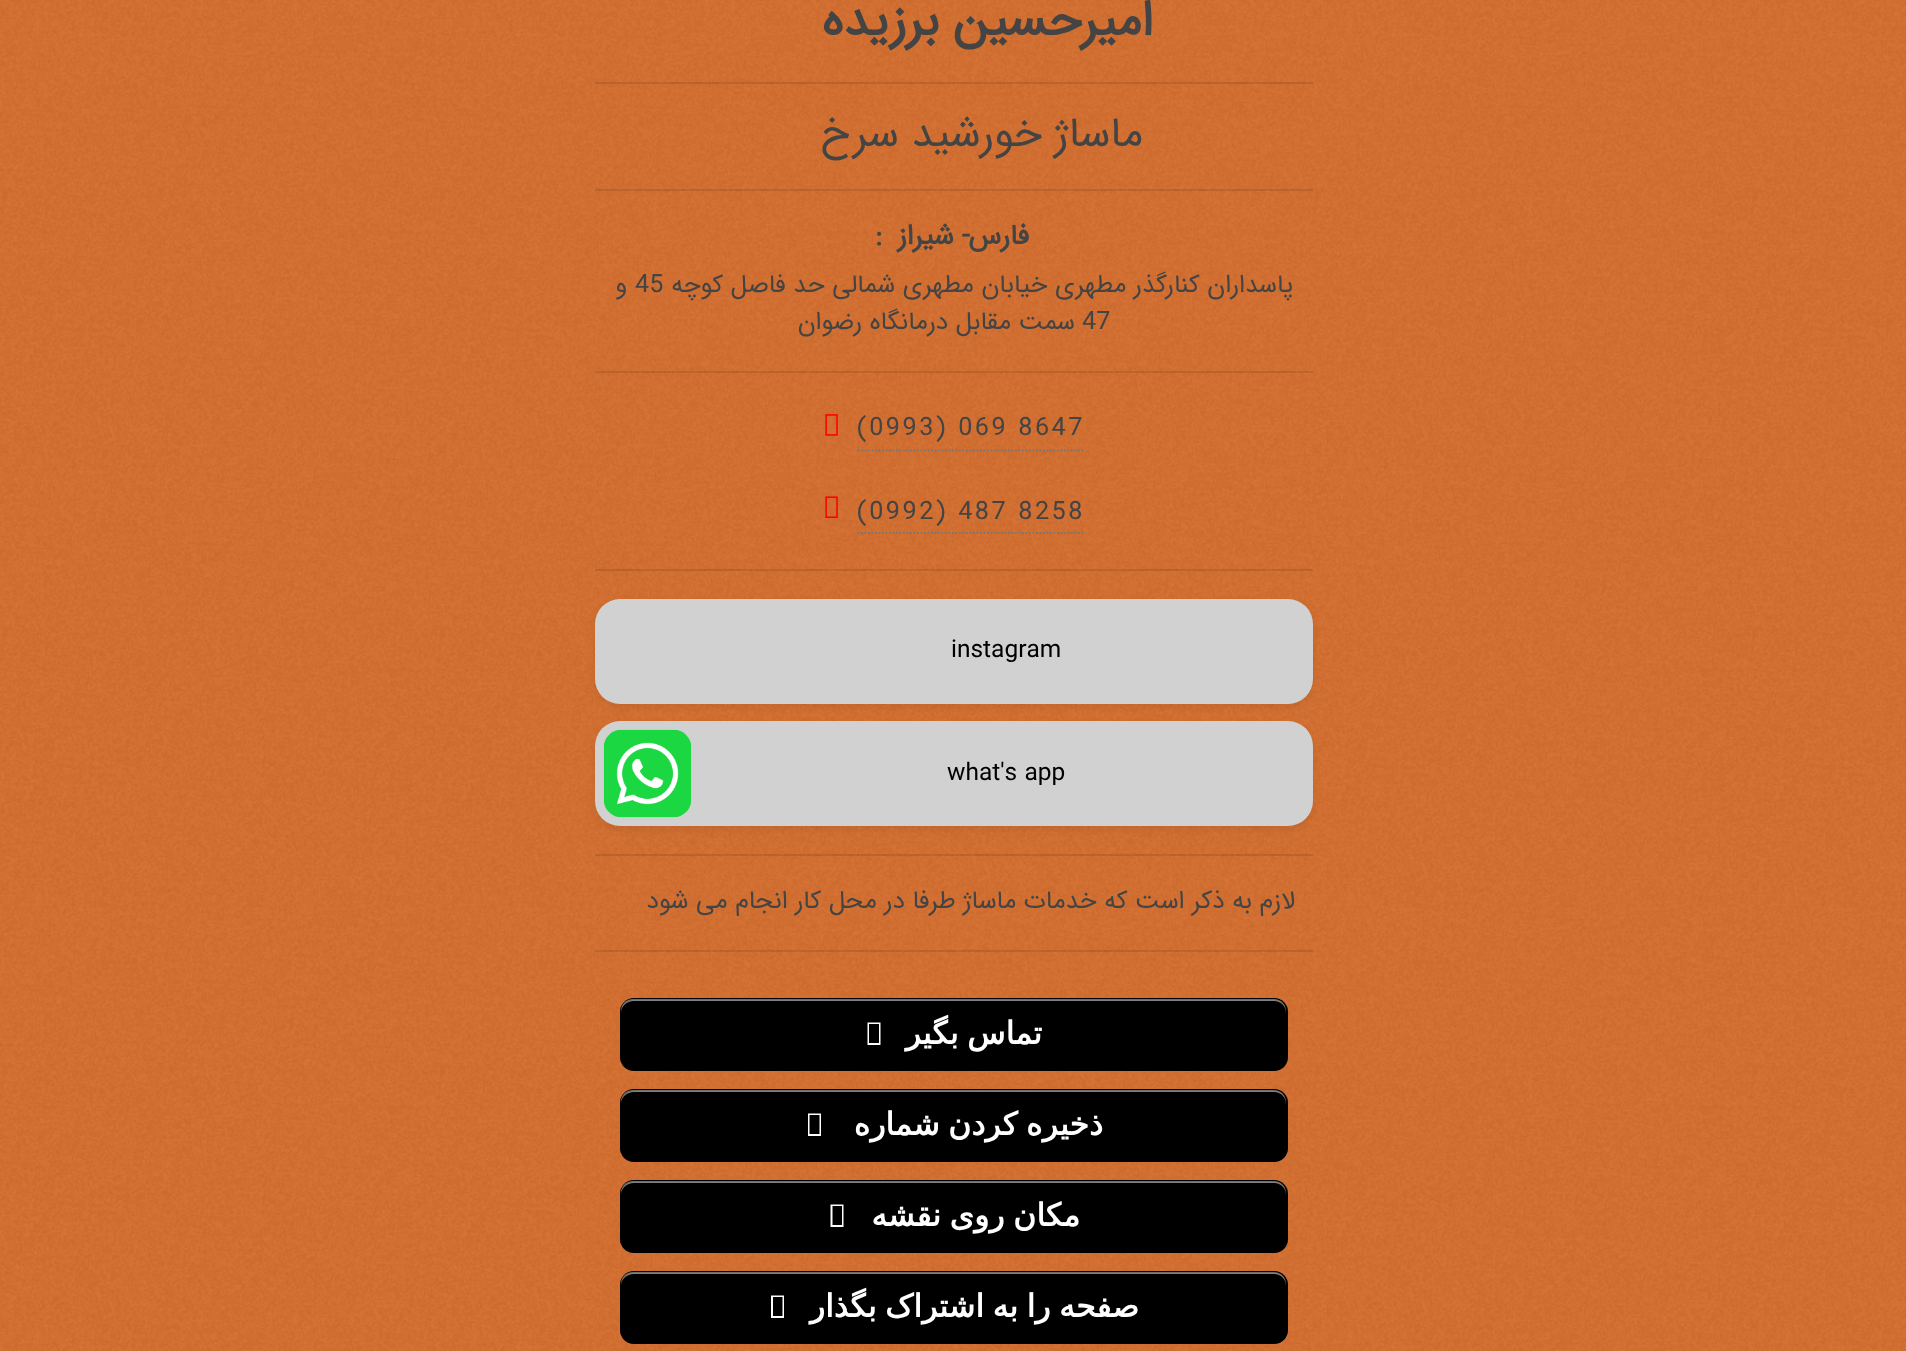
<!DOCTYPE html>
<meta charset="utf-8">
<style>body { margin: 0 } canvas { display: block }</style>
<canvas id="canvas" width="1906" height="1351"></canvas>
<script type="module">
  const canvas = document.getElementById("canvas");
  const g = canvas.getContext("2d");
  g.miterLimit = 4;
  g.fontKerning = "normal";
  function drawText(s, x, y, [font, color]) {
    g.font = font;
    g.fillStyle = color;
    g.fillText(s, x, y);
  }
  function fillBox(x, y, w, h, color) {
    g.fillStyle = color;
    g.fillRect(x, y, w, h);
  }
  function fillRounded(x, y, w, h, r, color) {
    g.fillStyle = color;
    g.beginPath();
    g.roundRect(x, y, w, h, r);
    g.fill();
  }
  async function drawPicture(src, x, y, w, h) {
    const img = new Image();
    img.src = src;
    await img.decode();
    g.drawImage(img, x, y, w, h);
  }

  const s1 = ["bold 49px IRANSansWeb", "#444444"];
  const s2 = ["42px IRANSansWeb", "#444444"];
  const s3 = ["bold 28px IRANSansWeb", "#444444"];
  const s4 = ["25.2px IRANSansWeb", "#444444"];
  const s5 = ["24.5px IRANSansWeb", "#000000"];
  const s6 = ["bold 31.5px DejaVu Sans", "#FFFFFF"];

  fillBox(0, 0, 1906, 1351, "#EB5A00");
  await drawPicture("pic1.png", 0, 0, 1906, 1351);
  g.letterSpacing = "2.5px";
  g.wordSpacing = "-3px";
  g.direction = "rtl";
  drawText("امیرحسین برزیده", 1153, 35, s1);
  fillBox(595, 82, 718, 2, "rgba(0, 0, 0, 0.1)");
  g.letterSpacing = "2.1px";
  g.wordSpacing = "-2px";
  drawText("ماساژ خورشید سرخ", 1143, 146, s2);
  fillBox(595, 189, 718, 2, "rgba(0, 0, 0, 0.1)");
  g.letterSpacing = "1.5px";
  g.wordSpacing = "0px";
  drawText("فارس", 1029, 244, s3);
  g.wordSpacing = "-2px";
  drawText("- شيراز", 971, 244, s3);
  g.wordSpacing = "0px";
  g.direction = "ltr";
  drawText(":", 875, 244, s3);
  g.letterSpacing = "0px";
  g.direction = "rtl";
  drawText("پاسداران کنارگذر مطهری خیابان مطهری شمالی حد فاصل کوچه", 1293, 292, s4);
  g.direction = "ltr";
  drawText("45", 635, 292, s4);
  g.direction = "rtl";
  drawText("و", 627, 292, s4);
  g.direction = "ltr";
  drawText("47", 1082, 329, s4);
  g.direction = "rtl";
  drawText("سمت مقابل درمانگاه رضوان", 1075, 329, s4);
  fillBox(595, 371, 718, 2, "rgba(0, 0, 0, 0.1)");
  g.letterSpacing = "2.5px";
  g.direction = "ltr";
  drawText("(0993) 069 8647", 857, 435, s4);
  g.beginPath();
  g.moveTo(857.5, 450.5);
  g.lineTo(1085, 450.5);
  g.strokeStyle = "#777777";
  g.lineWidth = 1.8;
  g.setLineDash([1.75, 1.75]);
  g.stroke();
  await drawPicture("pic2.png", 825, 414, 13, 22);
  drawText("(0992) 487 8258", 857, 519, s4);
  g.beginPath();
  g.moveTo(857.5, 533);
  g.lineTo(1085, 533);
  g.stroke();
  await drawPicture("pic3.png", 825, 496, 13, 22);
  fillBox(595, 569, 718, 2, "rgba(0, 0, 0, 0.1)");
  g.fillStyle = "rgba(10, 11, 13, 0.08)";
  g.filter = "blur(3.5px)";
  g.beginPath();
  g.roundRect(595, 602, 718, 105, 25);
  g.fill();
  g.filter = "none";
  fillRounded(595, 599, 718, 105, 25, "#D1D1D1");
  g.letterSpacing = "0px";
  drawText("instagram", 951, 657, s5);
  g.fillStyle = "rgba(10, 11, 13, 0.08)";
  g.filter = "blur(3.5px)";
  g.beginPath();
  g.roundRect(595, 725, 718, 105, 25);
  g.fill();
  g.filter = "none";
  fillRounded(595, 721, 718, 105, 25, "#D1D1D1");
  drawText("what's app", 947, 780, s5);
  await drawPicture("pic4.png", 603, 729, 89, 89);
  fillBox(595, 854, 718, 2, "rgba(0, 0, 0, 0.1)");
  g.direction = "rtl";
  drawText("لازم به ذکر است که خدمات ماساژ طرفا در محل کار انجام می شود", 1295, 908, s4);
  fillBox(595, 950, 718, 2, "rgba(0, 0, 0, 0.1)");
  fillRounded(620, 998, 668, 73, 14, "#000000");
  g.fillStyle = "rgba(255, 255, 255, 0.5)";
  g.beginPath();
  g.moveTo(634, 1001);
  g.lineTo(1274, 1001);
  g.bezierCurveTo(1281, 1001, 1286, 1006, 1286, 1013);
  g.lineTo(1286, 1011);
  g.bezierCurveTo(1286, 1004, 1281, 999, 1274, 999);
  g.lineTo(633, 999);
  g.bezierCurveTo(626, 999, 621, 1004, 621, 1011);
  g.lineTo(621, 1013);
  g.bezierCurveTo(621, 1006, 627, 1001, 634, 1001);
  g.closePath();
  g.fill();
  g.beginPath();
  g.roundRect(621, 999, 666, 71, 13);
  g.strokeStyle = "rgba(0, 0, 0, 0.15)";
  g.lineWidth = 2;
  g.setLineDash([]);
  g.stroke();
  g.wordSpacing = "-1.5px";
  drawText("تماس بگیر", 1042, 1044, s6);
  g.beginPath();
  g.moveTo(867.5, 1045);
  g.lineTo(867.5, 1022.5);
  g.lineTo(880.5, 1022.5);
  g.lineTo(880.5, 1045);
  g.closePath();
  g.moveTo(869, 1043);
  g.lineTo(879, 1043);
  g.lineTo(879, 1024);
  g.lineTo(869, 1024);
  g.closePath();
  g.fill();
  fillRounded(620, 1089, 668, 73, 14, "#000000");
  g.fillStyle = "rgba(255, 255, 255, 0.5)";
  g.beginPath();
  g.moveTo(634, 1092);
  g.lineTo(1274, 1092);
  g.bezierCurveTo(1281, 1092, 1286, 1097, 1286, 1104);
  g.lineTo(1286, 1102);
  g.bezierCurveTo(1286, 1095, 1281, 1090, 1274, 1090);
  g.lineTo(633, 1090);
  g.bezierCurveTo(626, 1090, 621, 1095, 621, 1102);
  g.lineTo(621, 1104);
  g.bezierCurveTo(621, 1097, 627, 1092, 634, 1092);
  g.closePath();
  g.fill();
  g.beginPath();
  g.roundRect(621, 1090, 666, 71, 13);
  g.stroke();
  drawText("ذخیره کردن شماره", 1103, 1135, s6);
  g.beginPath();
  g.moveTo(808, 1136);
  g.lineTo(808, 1113.5);
  g.lineTo(821, 1113.5);
  g.lineTo(821, 1136);
  g.closePath();
  g.moveTo(809.5, 1134);
  g.lineTo(819.5, 1134);
  g.lineTo(819.5, 1115);
  g.lineTo(809.5, 1115);
  g.closePath();
  g.fill();
  fillRounded(620, 1180, 668, 73, 14, "#000000");
  g.fillStyle = "rgba(255, 255, 255, 0.5)";
  g.beginPath();
  g.moveTo(634, 1183);
  g.lineTo(1274, 1183);
  g.bezierCurveTo(1281, 1183, 1286, 1188, 1286, 1195);
  g.lineTo(1286, 1193);
  g.bezierCurveTo(1286, 1186, 1281, 1181, 1274, 1181);
  g.lineTo(633, 1181);
  g.bezierCurveTo(626, 1181, 621, 1186, 621, 1193);
  g.lineTo(621, 1195);
  g.bezierCurveTo(621, 1188, 627, 1183, 634, 1183);
  g.closePath();
  g.fill();
  g.beginPath();
  g.roundRect(621, 1181, 666, 71, 13);
  g.stroke();
  drawText("مکان روی نقشه", 1080, 1226, s6);
  g.beginPath();
  g.moveTo(830.5, 1227);
  g.lineTo(830.5, 1204.5);
  g.lineTo(843.5, 1204.5);
  g.lineTo(843.5, 1227);
  g.closePath();
  g.moveTo(832.5, 1225);
  g.lineTo(842, 1225);
  g.lineTo(842, 1206);
  g.lineTo(832.5, 1206);
  g.closePath();
  g.fill();
  fillRounded(620, 1271, 668, 73, 14, "#000000");
  g.fillStyle = "rgba(255, 255, 255, 0.5)";
  g.beginPath();
  g.moveTo(634, 1274);
  g.lineTo(1274, 1274);
  g.bezierCurveTo(1281, 1274, 1286, 1279, 1286, 1286);
  g.lineTo(1286, 1284);
  g.bezierCurveTo(1286, 1277, 1281, 1272, 1274, 1272);
  g.lineTo(633, 1272);
  g.bezierCurveTo(626, 1272, 621, 1277, 621, 1284);
  g.lineTo(621, 1286);
  g.bezierCurveTo(621, 1279, 627, 1274, 634, 1274);
  g.closePath();
  g.fill();
  g.beginPath();
  g.roundRect(621, 1272, 666, 71, 13);
  g.stroke();
  drawText("صفحه را به اشتراک بگذار", 1139, 1317, s6);
  g.beginPath();
  g.moveTo(771, 1318);
  g.lineTo(771, 1295.5);
  g.lineTo(784, 1295.5);
  g.lineTo(784, 1318);
  g.closePath();
  g.moveTo(773, 1316);
  g.lineTo(782.5, 1316);
  g.lineTo(782.5, 1297);
  g.lineTo(773, 1297);
  g.closePath();
  g.fill();
</script>
